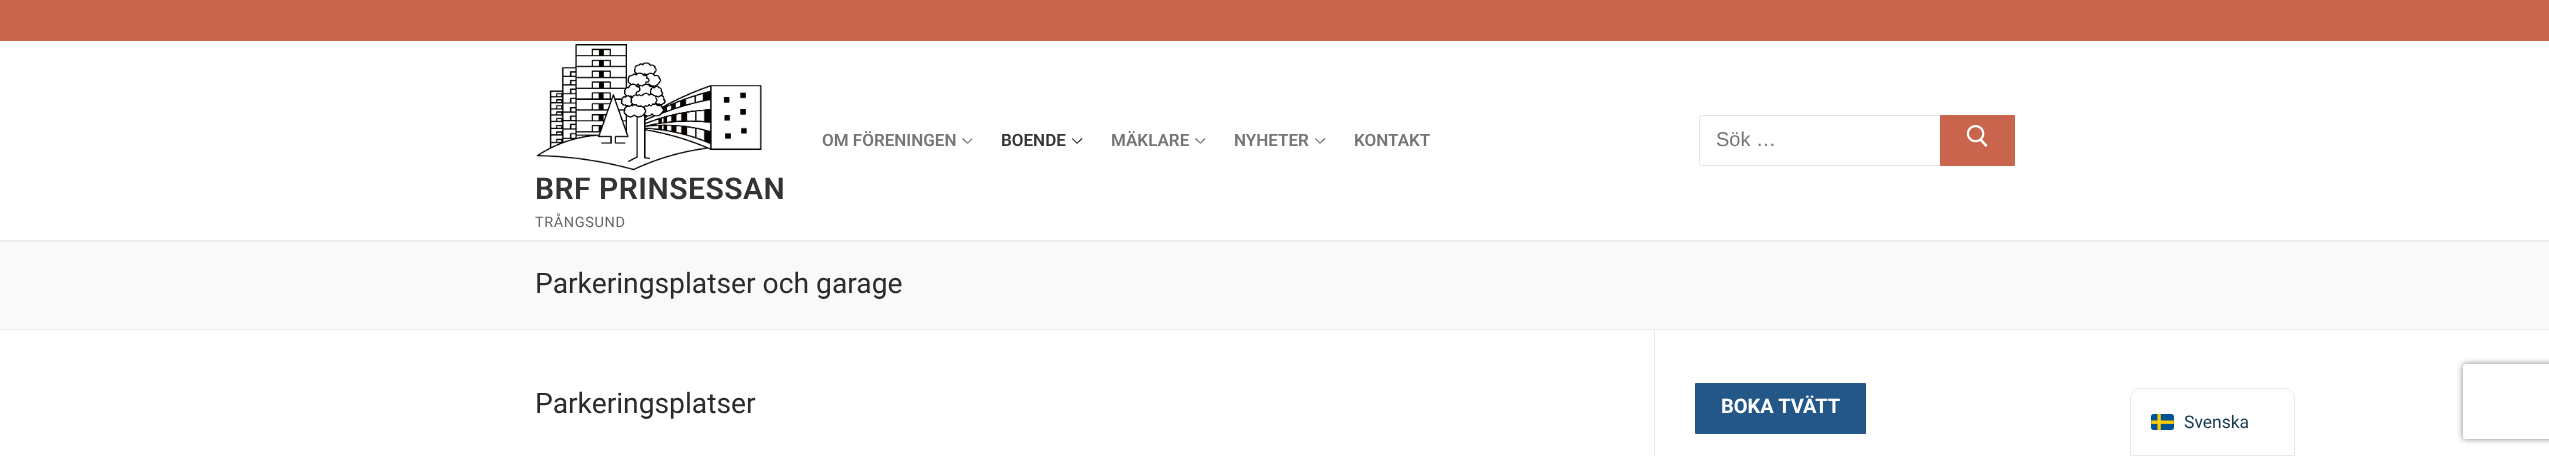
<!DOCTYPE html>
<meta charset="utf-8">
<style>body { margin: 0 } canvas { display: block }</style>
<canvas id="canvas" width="2549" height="456"></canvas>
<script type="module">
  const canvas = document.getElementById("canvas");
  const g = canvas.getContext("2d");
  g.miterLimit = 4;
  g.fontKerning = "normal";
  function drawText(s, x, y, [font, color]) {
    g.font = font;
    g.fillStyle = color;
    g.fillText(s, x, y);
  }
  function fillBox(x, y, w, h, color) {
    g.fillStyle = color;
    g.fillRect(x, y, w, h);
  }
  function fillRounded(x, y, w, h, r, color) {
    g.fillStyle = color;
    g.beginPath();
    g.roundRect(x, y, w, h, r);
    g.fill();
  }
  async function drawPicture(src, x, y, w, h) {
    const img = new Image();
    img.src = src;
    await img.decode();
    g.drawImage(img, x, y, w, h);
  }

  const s1 = ["600 17px Roboto", "#757575"];
  const s2 = ["600 17px Roboto", "#333333"];
  const s3 = ["600 30px Roboto", "#333333"];
  const s4 = ["14.5px Roboto", "#666666"];
  const s5 = ["20px Liberation Sans", "#757575"];
  const s6 = ["28.25px Roboto", "#2B2B2B"];
  const s7 = ["bold 20px Roboto", "#FFFFFF"];
  const s8 = ["17.5px Roboto", "#143852"];

  fillBox(0, 0, 2549, 456, "#FFFFFF");
  fillBox(0, 0, 2549, 41, "#C9644D");
  fillBox(0, 240, 2549, 89, "#F9F9F9");
  g.save();
  g.beginPath();
  g.rect(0, 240, 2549, 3);
  g.clip();
  g.fillStyle = "#E1E5EA";
  g.filter = "blur(1px)";
  g.beginPath();
  g.rect(0, 43, 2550, 198);
  g.fill();
  g.filter = "none";
  g.restore();
  drawText("OM FÖRENINGEN", 822, 146, s1);
  g.fillStyle = "#737373";
  g.beginPath();
  g.moveTo(967.5, 144);
  g.lineTo(962, 139);
  g.lineTo(963, 138);
  g.lineTo(967.5, 142.5);
  g.closePath();
  g.fill();
  g.beginPath();
  g.moveTo(972.5, 139);
  g.lineTo(967.5, 144);
  g.lineTo(967.5, 142.5);
  g.lineTo(972, 138);
  g.closePath();
  g.fill();
  drawText("BOENDE", 1001, 146, s2);
  g.beginPath();
  g.moveTo(1077, 144);
  g.lineTo(1072, 139);
  g.lineTo(1072.5, 138);
  g.lineTo(1077, 142.5);
  g.closePath();
  g.moveTo(1082.5, 139);
  g.lineTo(1077, 144);
  g.lineTo(1077, 142.5);
  g.lineTo(1081.5, 138);
  g.closePath();
  g.fill();
  drawText("MÄKLARE", 1111, 146, s1);
  g.fillStyle = "#737373";
  g.beginPath();
  g.moveTo(1200.5, 144);
  g.lineTo(1195, 139);
  g.lineTo(1196, 138);
  g.lineTo(1200.5, 142.5);
  g.closePath();
  g.fill();
  g.beginPath();
  g.moveTo(1205.5, 139);
  g.lineTo(1200.5, 144);
  g.lineTo(1200.5, 142.5);
  g.lineTo(1204.5, 138);
  g.closePath();
  g.fill();
  drawText("NYHETER", 1234, 146, s1);
  g.fillStyle = "#737373";
  g.beginPath();
  g.moveTo(1320, 144);
  g.lineTo(1315, 139);
  g.lineTo(1315.5, 138);
  g.lineTo(1320, 142.5);
  g.closePath();
  g.moveTo(1325.5, 139);
  g.lineTo(1320, 144);
  g.lineTo(1320, 142.5);
  g.lineTo(1324.5, 138);
  g.closePath();
  g.fill();
  drawText("KONTAKT", 1354, 146, s1);
  await drawPicture("pic1.png", 536, 44, 226, 127);
  g.letterSpacing = "0.5px";
  drawText("BRF PRINSESSAN", 535, 199, s3);
  g.letterSpacing = "0.6px";
  drawText("TRÅNGSUND", 535, 227, s4);
  g.beginPath();
  g.roundRect(1699.5, 115.5, 290, 50, 2);
  g.strokeStyle = "#E5E5E5";
  g.stroke();
  g.letterSpacing = "0px";
  drawText("Sök …", 1716, 146, s5);
  fillRounded(1940, 115, 75, 51, 1, "#C9644D");
  await drawPicture("pic2.png", 1966, 125, 22, 22);
  fillBox(0, 329, 2549, 1, "#EAECEE");
  drawText("Parkeringsplatser och garage", 535, 293, s6);
  fillBox(1654, 330, 1, 126, "#EAECEE");
  drawText("Parkeringsplatser", 535, 413, s6);
  fillRounded(1695, 383, 171, 51, 1, "#235787");
  drawText("BOKA TVÄTT", 1721, 413, s7);
  g.beginPath();
  g.roundRect(2130.5, 388.5, 164, 67, [9.5, 9.5, 0, 0]);
  g.strokeStyle = "#E7EBEE";
  g.stroke();
  await drawPicture("pic3.png", 2151, 414, 23, 16);
  drawText("Svenska", 2184, 428, s8);
  g.save();
  g.beginPath();
  g.moveTo(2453, 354);
  g.lineTo(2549, 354);
  g.lineTo(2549, 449);
  g.lineTo(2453, 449);
  g.closePath();
  g.moveTo(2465.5, 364);
  g.lineTo(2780.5, 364);
  g.bezierCurveTo(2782, 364, 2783, 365, 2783, 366.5);
  g.lineTo(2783, 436.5);
  g.bezierCurveTo(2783, 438, 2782, 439, 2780.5, 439);
  g.lineTo(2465.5, 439);
  g.bezierCurveTo(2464, 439, 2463, 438, 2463, 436.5);
  g.lineTo(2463, 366.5);
  g.bezierCurveTo(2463, 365, 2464, 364, 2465.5, 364);
  g.closePath();
  g.clip("evenodd");
  g.fillStyle = "#808080";
  g.filter = "blur(3px)";
  g.beginPath();
  g.roundRect(2463, 364, 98, 75, 2.5);
  g.fill();
  g.filter = "none";
  g.restore();
</script>
